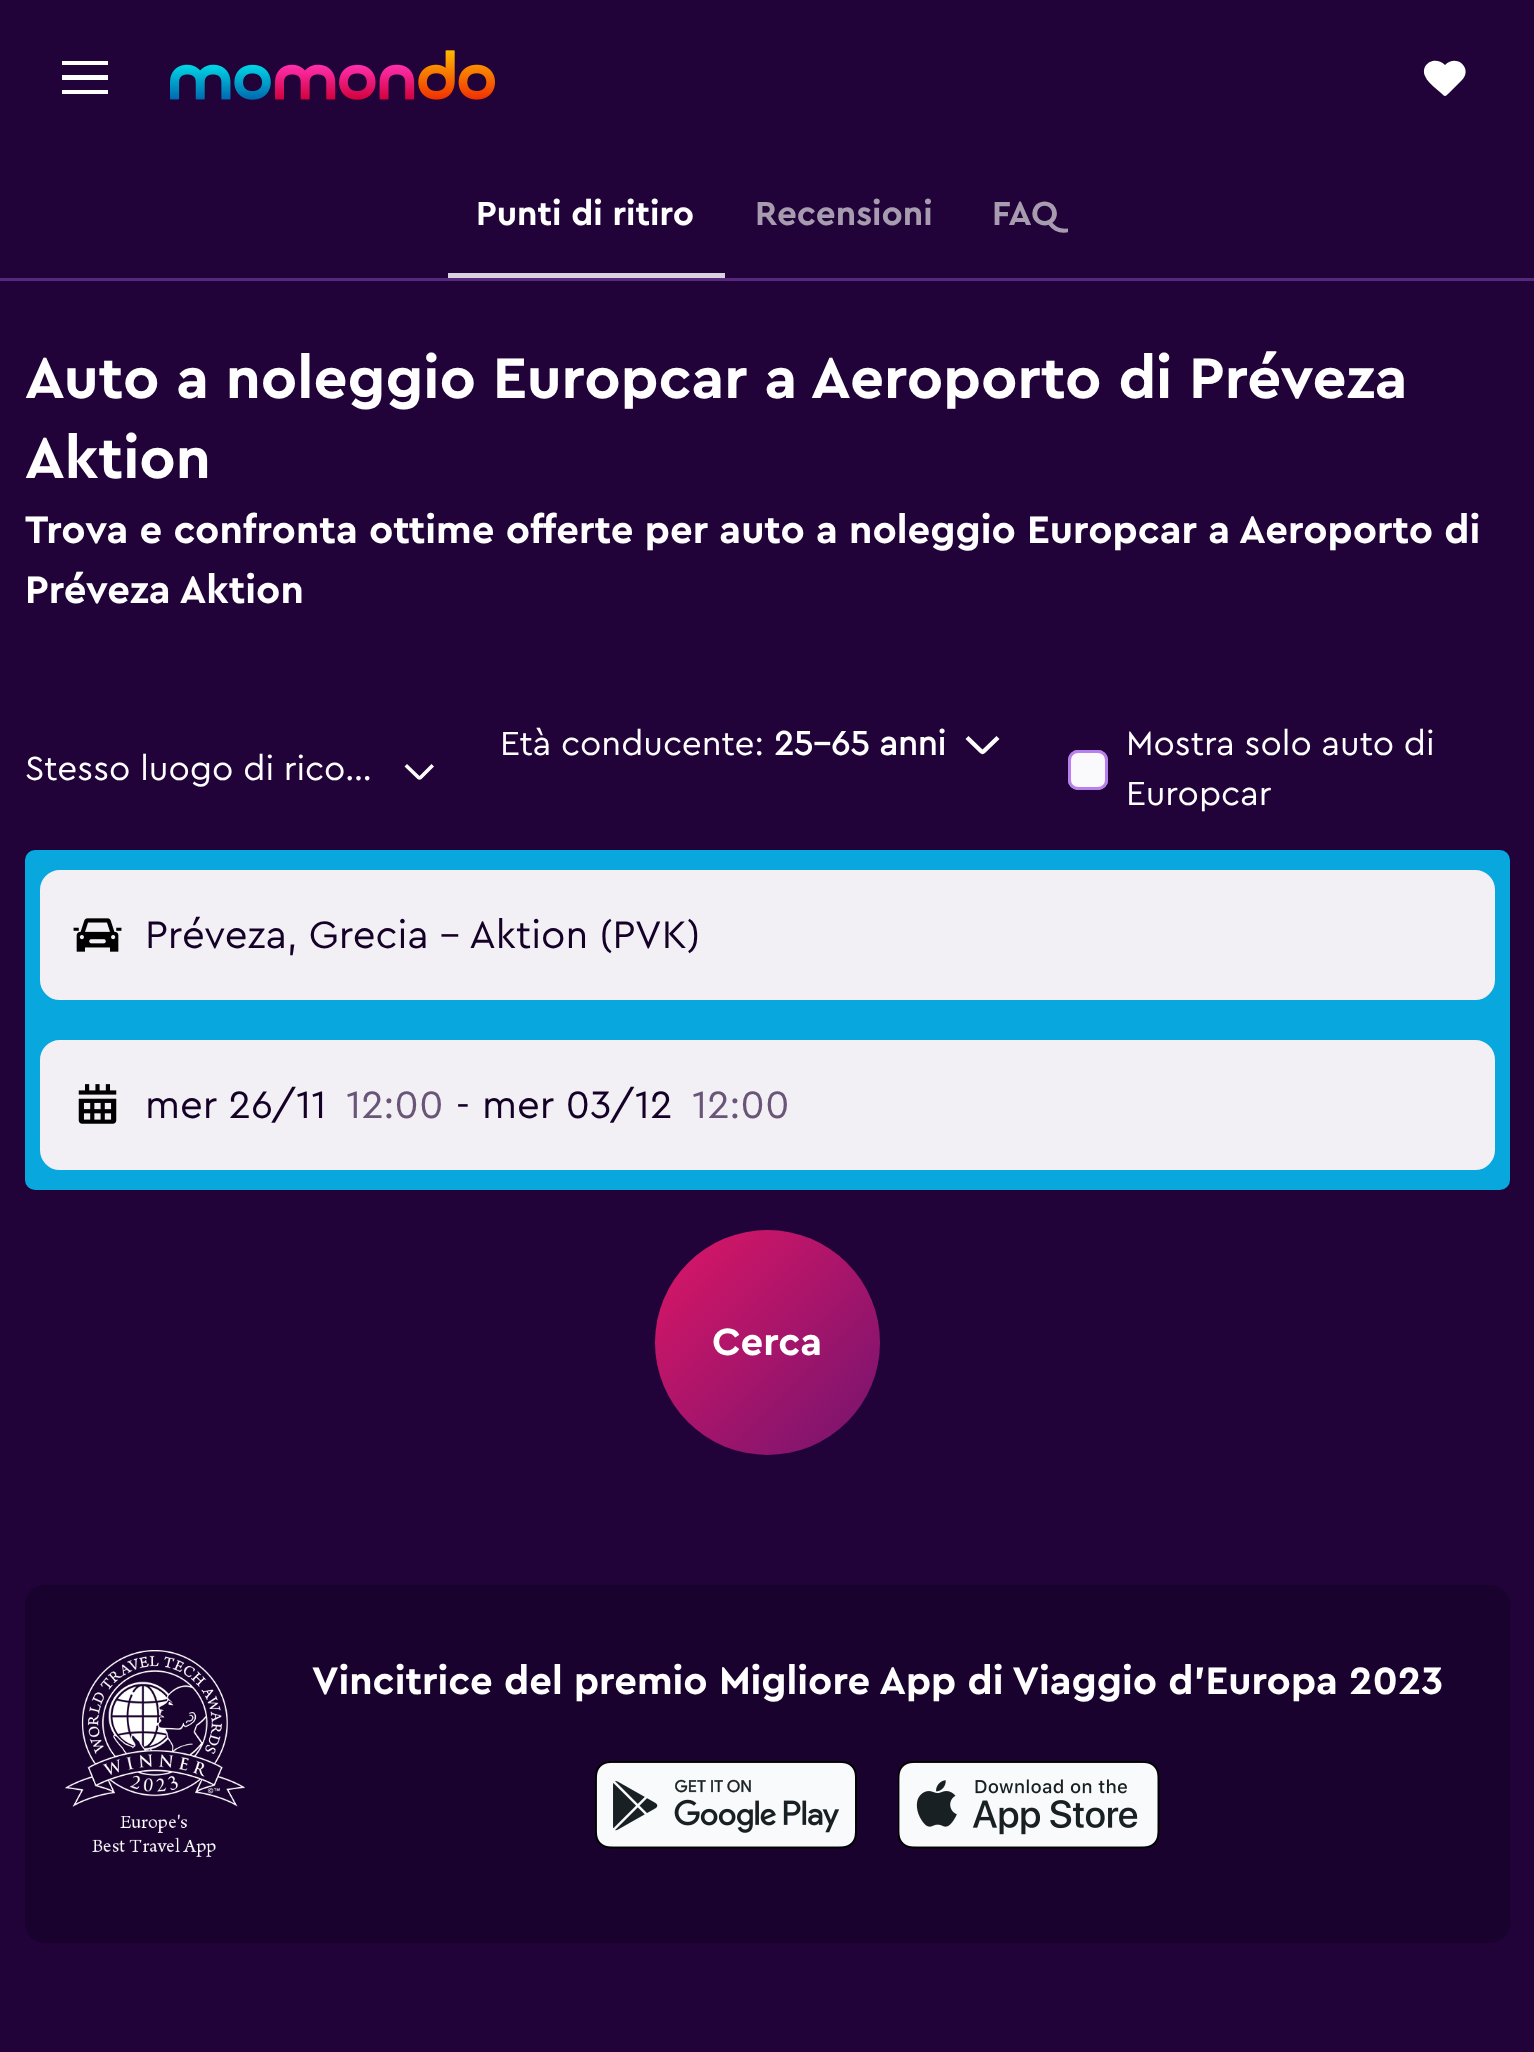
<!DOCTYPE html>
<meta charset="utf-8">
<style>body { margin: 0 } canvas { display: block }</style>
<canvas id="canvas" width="1534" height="2052"></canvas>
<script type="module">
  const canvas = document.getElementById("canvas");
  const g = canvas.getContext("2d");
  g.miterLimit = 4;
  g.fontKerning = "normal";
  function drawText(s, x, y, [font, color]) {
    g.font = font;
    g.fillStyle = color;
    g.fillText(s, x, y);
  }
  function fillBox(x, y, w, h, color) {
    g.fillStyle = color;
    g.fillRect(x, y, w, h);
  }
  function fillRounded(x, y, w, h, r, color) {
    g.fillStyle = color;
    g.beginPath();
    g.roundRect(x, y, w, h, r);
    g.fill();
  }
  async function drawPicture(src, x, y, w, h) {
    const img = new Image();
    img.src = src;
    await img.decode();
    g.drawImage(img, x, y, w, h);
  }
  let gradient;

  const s1 = ["bold 35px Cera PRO", "#FFFFFF"];
  const s2 = ["bold 35px Cera PRO", "#A79BB0"];
  const s3 = ["bold 60px Cera PRO", "#FFFFFF"];
  const s4 = ["bold 40px Cera PRO", "#FFFFFF"];
  const s5 = ["35px Cera PRO", "#FFFFFF"];
  const s6 = ["bold 35px 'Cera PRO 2'", "#FFFFFF"];
  const s7 = ["40px Cera PRO", "#150127"];
  const s8 = ["40px Cera PRO", "#685577"];

  fillBox(0, 0, 1534, 2052, "#21033A");
  g.fillStyle = "#FFFFFF";
  g.beginPath();
  g.moveTo(108, 65);
  g.lineTo(62, 65);
  g.lineTo(62, 61);
  g.lineTo(108, 61);
  g.closePath();
  g.moveTo(108, 90);
  g.lineTo(62, 90);
  g.lineTo(62, 94);
  g.lineTo(108, 94);
  g.closePath();
  g.moveTo(108, 75);
  g.lineTo(62, 75);
  g.lineTo(62, 80);
  g.lineTo(108, 80);
  g.closePath();
  g.fill();
  await drawPicture("pic1.png", 170, 50, 325, 50);
  g.beginPath();
  g.moveTo(1462, 80);
  g.lineTo(1449, 93);
  g.bezierCurveTo(1445, 97, 1445, 97, 1441, 93);
  g.lineTo(1434, 87);
  g.bezierCurveTo(1431, 84, 1427, 81, 1425, 76);
  g.bezierCurveTo(1420, 64, 1435, 55, 1445, 65);
  g.bezierCurveTo(1457, 53, 1473, 69, 1462, 80);
  g.closePath();
  g.fill();
  fillBox(0, 278, 1534, 3, "rgba(167, 98, 234, 0.4)");
  fillBox(448, 273, 277, 5, "#DAD2E0");
  drawText("Punti di ritiro", 476, 225, s1);
  drawText("Recensioni", 755, 225, s2);
  drawText("FAQ", 992, 225, s2);
  drawText("Auto a noleggio Europcar a Aeroporto di Préveza", 25, 398, s3);
  drawText("Aktion", 25, 478, s3);
  drawText("Trova e confronta ottime offerte per auto a noleggio Europcar a Aeroporto di", 25, 543, s4);
  drawText("Préveza Aktion", 25, 603, s4);
  drawText("Stesso luogo di rico…", 25, 780, s5);
  g.beginPath();
  g.moveTo(434, 766.5);
  g.lineTo(421.5, 779);
  g.bezierCurveTo(420.5, 780, 418.5, 780, 417.5, 779);
  g.lineTo(404.5, 766.5);
  g.lineTo(407, 764);
  g.lineTo(419.5, 776);
  g.lineTo(431.5, 764);
  g.closePath();
  g.fill();
  drawText("Età conducente:", 500, 755, s5);
  drawText("25-65 anni", 774, 755, s6);
  g.beginPath();
  g.moveTo(999.5, 739);
  g.lineTo(985, 753);
  g.bezierCurveTo(983.5, 754.5, 981.5, 754.5, 980, 753);
  g.lineTo(965.5, 739);
  g.lineTo(968.5, 736);
  g.lineTo(982.5, 749.5);
  g.lineTo(996.5, 736);
  g.closePath();
  g.fill();
  fillRounded(1068, 750, 40, 40, 10, "#FAF9FB");
  g.beginPath();
  g.roundRect(1069.5, 751.5, 37, 37, 8.5);
  g.strokeStyle = "rgba(167, 98, 234, 0.8)";
  g.lineWidth = 3;
  g.stroke();
  drawText("Mostra solo auto di", 1126, 755, s5);
  drawText("Europcar", 1126, 805, s5);
  g.fillStyle = "#08A7DD";
  g.beginPath();
  g.roundRect(25, 850, 1485, 170, [10, 10, 0, 0]);
  g.fill();
  g.fillStyle = "#F3F0F5";
  g.beginPath();
  g.roundRect(41.5, 871.5, 1452, 127, 18.5);
  g.fill();
  g.strokeStyle = "#F3F0F5";
  g.stroke();
  await drawPicture("pic2.png", 73, 918, 49, 34);
  drawText("Préveza, Grecia - Aktion (PVK)", 145, 948, s7);
  g.fillStyle = "#08A7DD";
  g.beginPath();
  g.roundRect(25, 1020, 1485, 170, [0, 0, 10, 10]);
  g.fill();
  g.fillStyle = "#F3F0F5";
  g.beginPath();
  g.roundRect(41.5, 1041.5, 1452, 127, 18.5);
  g.fill();
  g.stroke();
  await drawPicture("pic3.png", 78, 1084, 39, 40);
  drawText("mer 26/11", 145, 1118, s7);
  drawText("12:00", 346, 1118, s8);
  drawText("-", 456, 1118, s7);
  drawText("mer 03/12", 482, 1118, s7);
  drawText("12:00", 692, 1118, s8);
  gradient = g.createLinearGradient(655, 1230, 880, 1455);
  gradient.addColorStop(0, "#DE1666");
  gradient.addColorStop(1, "#73146F");
  g.fillStyle = gradient;
  g.beginPath();
  g.arc(767.5, 1342.5, 112.5, 0, Math.PI * 2);
  g.fill();
  drawText("Cerca", 712, 1355, s4);
  fillRounded(25, 1585, 1485, 358, 20, "#1A022F");
  await drawPicture("pic4.png", 65, 1650, 180, 207);
  drawText("Vincitrice del premio Migliore App di Viaggio d'Europa 2023", 312, 1694, s4);
  await drawPicture("pic5.png", 595, 1761, 262, 88);
  await drawPicture("pic6.png", 898, 1761, 262, 88);
</script>
